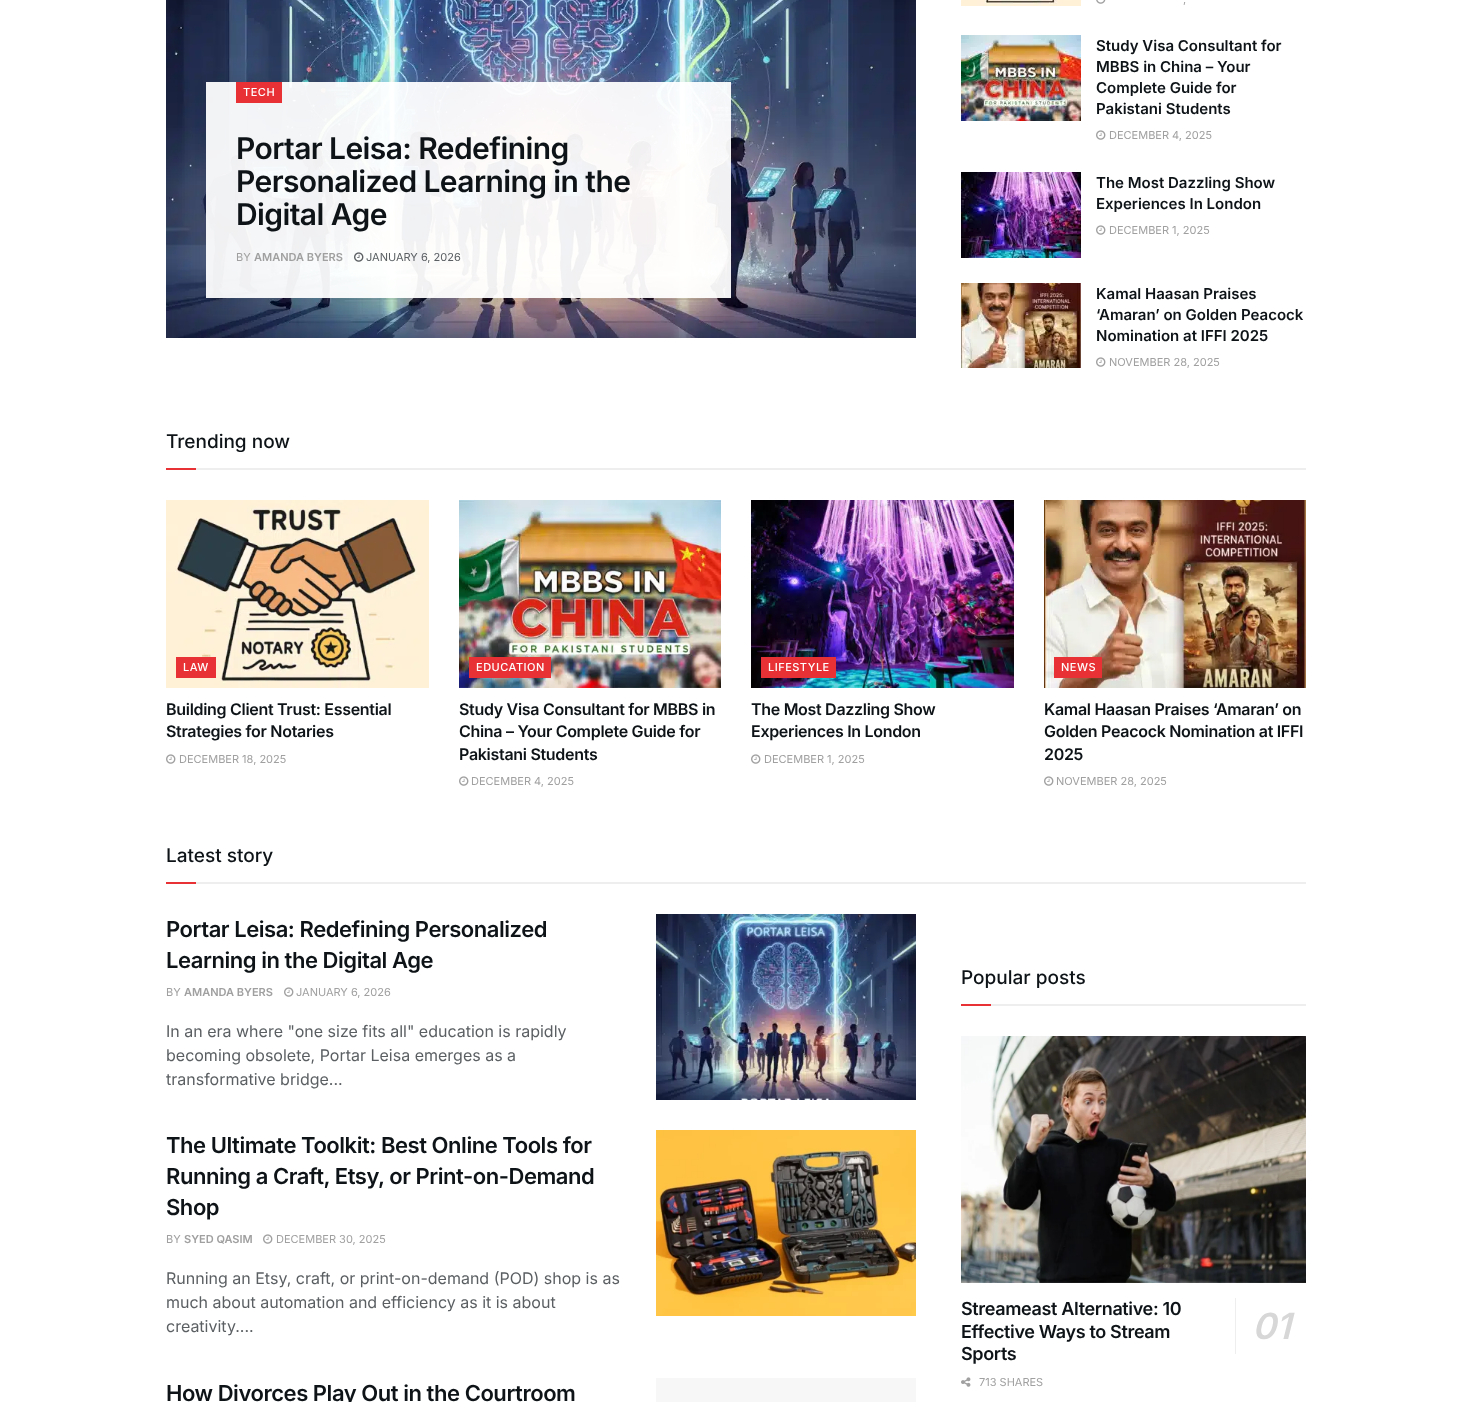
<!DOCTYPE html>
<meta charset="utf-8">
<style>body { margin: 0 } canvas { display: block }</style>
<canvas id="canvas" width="1472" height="1402"></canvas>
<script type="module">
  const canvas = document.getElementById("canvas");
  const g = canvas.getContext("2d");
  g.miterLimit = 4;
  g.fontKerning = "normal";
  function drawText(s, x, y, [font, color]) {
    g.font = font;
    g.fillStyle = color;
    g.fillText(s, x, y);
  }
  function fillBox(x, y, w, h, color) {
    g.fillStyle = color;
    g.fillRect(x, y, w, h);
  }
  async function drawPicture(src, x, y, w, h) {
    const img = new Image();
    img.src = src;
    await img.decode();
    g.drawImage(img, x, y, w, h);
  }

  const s1 = ["500 11px Inter", "#FFFFFF"];
  const s2 = ["600 30px Inter", "#0D1317"];
  const s3 = ["11px Inter", "#A0A0A0"];
  const s4 = ["600 11px Inter", "#A0A0A0"];
  const s5 = ["11px Inter", "#5B5F62"];
  const s6 = ["600 15px Inter", "#0D1317"];
  const s7 = ["500 19px Inter", "#0D1317"];
  const s8 = ["600 16px Inter", "#0D1317"];
  const s9 = ["600 22px Inter", "#0D1317"];
  const s10 = ["16px Inter", "#5B5F62"];
  const s11 = ["600 18px Inter", "#0D1317"];
  const s12 = ["italic 600 36px Inter", "#D7D7D7"];

  fillBox(0, 0, 1472, 1402, "#FFFFFF");
  await drawPicture("pic1.png", 166, 0, 750, 338);
  g.save();
  g.beginPath();
  g.moveTo(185, 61);
  g.lineTo(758, 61);
  g.lineTo(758, 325);
  g.lineTo(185, 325);
  g.closePath();
  g.moveTo(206, 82);
  g.lineTo(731, 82);
  g.lineTo(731, 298);
  g.lineTo(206, 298);
  g.closePath();
  g.clip("evenodd");
  g.fillStyle = "rgba(0, 0, 0, 0.1)";
  g.filter = "blur(7.5px)";
  g.beginPath();
  g.rect(209, 85, 525, 216);
  g.fill();
  g.filter = "none";
  g.restore();
  fillBox(206, 82, 525, 216, "rgba(255, 255, 255, 0.94)");
  fillBox(236, 82, 46, 21, "#E73134");
  g.letterSpacing = "0.5px";
  drawText("TECH", 243, 96, s1);
  g.letterSpacing = "-0.6px";
  drawText("Portar Leisa: Redefining", 236, 159, s2);
  drawText("Personalized Learning in the", 236, 192, s2);
  drawText("Digital Age", 236, 225, s2);
  g.letterSpacing = "0px";
  drawText("BY", 236, 261, s3);
  drawText("AMANDA BYERS", 254, 261, s4);
  await drawPicture("pic2.png", 354, 252, 10, 10);
  drawText("JANUARY 6, 2026", 366, 261, s5);
  await drawPicture("pic3.png", 961, 0, 120, 6);
  await drawPicture("pic4.png", 1096, 0, 10, 4);
  drawText(",", 1183, 3, s3);
  await drawPicture("pic5.png", 961, 35, 120, 86);
  drawText("Study Visa Consultant for", 1096, 51, s6);
  drawText("MBBS in China – Your", 1096, 72, s6);
  drawText("Complete Guide for", 1096, 93, s6);
  drawText("Pakistani Students", 1096, 114, s6);
  await drawPicture("pic6.png", 1096, 130, 10, 10);
  drawText("DECEMBER 4, 2025", 1109, 139, s3);
  await drawPicture("pic7.png", 961, 172, 120, 86);
  drawText("The Most Dazzling Show", 1096, 188, s6);
  drawText("Experiences In London", 1096, 209, s6);
  await drawPicture("pic6.png", 1096, 225, 10, 10);
  drawText("DECEMBER 1, 2025", 1109, 234, s3);
  await drawPicture("pic8.png", 961, 283, 120, 85);
  drawText("Kamal Haasan Praises", 1096, 299, s6);
  drawText("‘Amaran’ on Golden Peacock", 1096, 320, s6);
  drawText("Nomination at IFFI 2025", 1096, 341, s6);
  await drawPicture("pic6.png", 1096, 357, 10, 10);
  drawText("NOVEMBER 28, 2025", 1109, 366, s3);
  fillBox(196, 468, 1110, 2, "#EEEEEE");
  drawText("Trending now", 166, 448, s7);
  fillBox(166, 468, 30, 2, "#E73134");
  await drawPicture("pic9.png", 166, 500, 263, 188);
  fillBox(176, 657, 40, 21, "#E73134");
  g.letterSpacing = "0.5px";
  drawText("LAW", 183, 671, s1);
  g.letterSpacing = "-0.3px";
  drawText("Building Client Trust: Essential", 166, 715, s8);
  drawText("Strategies for Notaries", 166, 737, s8);
  await drawPicture("pic6.png", 166, 754, 10, 10);
  g.letterSpacing = "0px";
  drawText("DECEMBER 18, 2025", 179, 763, s3);
  await drawPicture("pic10.png", 459, 500, 262, 188);
  fillBox(469, 657, 82, 21, "#E73134");
  g.letterSpacing = "0.5px";
  drawText("EDUCATION", 476, 671, s1);
  g.letterSpacing = "-0.3px";
  drawText("Study Visa Consultant for MBBS in", 459, 715, s8);
  drawText("China – Your Complete Guide for", 459, 737, s8);
  drawText("Pakistani Students", 459, 760, s8);
  await drawPicture("pic6.png", 459, 776, 10, 10);
  g.letterSpacing = "0px";
  drawText("DECEMBER 4, 2025", 471, 785, s3);
  await drawPicture("pic11.png", 751, 500, 263, 188);
  fillBox(761, 657, 75, 21, "#E73134");
  g.letterSpacing = "0.5px";
  drawText("LIFESTYLE", 768, 671, s1);
  g.letterSpacing = "-0.3px";
  drawText("The Most Dazzling Show", 751, 715, s8);
  drawText("Experiences In London", 751, 737, s8);
  await drawPicture("pic6.png", 751, 754, 10, 10);
  g.letterSpacing = "0px";
  drawText("DECEMBER 1, 2025", 764, 763, s3);
  await drawPicture("pic12.png", 1044, 500, 262, 188);
  fillBox(1054, 657, 48, 21, "#E73134");
  g.letterSpacing = "0.5px";
  drawText("NEWS", 1061, 671, s1);
  g.letterSpacing = "-0.3px";
  drawText("Kamal Haasan Praises ‘Amaran’ on", 1044, 715, s8);
  drawText("Golden Peacock Nomination at IFFI", 1044, 737, s8);
  drawText("2025", 1044, 760, s8);
  await drawPicture("pic6.png", 1044, 776, 10, 10);
  g.letterSpacing = "0px";
  drawText("NOVEMBER 28, 2025", 1056, 785, s3);
  fillBox(196, 882, 1110, 2, "#EEEEEE");
  drawText("Latest story", 166, 862, s7);
  fillBox(166, 882, 30, 2, "#E73134");
  g.letterSpacing = "-0.45px";
  drawText("Portar Leisa: Redefining Personalized", 166, 937, s9);
  drawText("Learning in the Digital Age", 166, 968, s9);
  g.letterSpacing = "0px";
  drawText("BY", 166, 996, s3);
  drawText("AMANDA BYERS", 184, 996, s4);
  await drawPicture("pic6.png", 284, 987, 10, 10);
  drawText("JANUARY 6, 2026", 296, 996, s3);
  drawText("In an era where \"one size fits all\" education is rapidly", 166, 1037, s10);
  drawText("becoming obsolete, Portar Leisa emerges as a", 166, 1061, s10);
  drawText("transformative bridge...", 166, 1085, s10);
  await drawPicture("pic13.png", 656, 914, 260, 186);
  g.letterSpacing = "-0.45px";
  drawText("The Ultimate Toolkit: Best Online Tools for", 166, 1153, s9);
  drawText("Running a Craft, Etsy, or Print-on-Demand", 166, 1184, s9);
  drawText("Shop", 166, 1215, s9);
  g.letterSpacing = "0px";
  drawText("BY", 166, 1243, s3);
  drawText("SYED QASIM", 184, 1243, s4);
  await drawPicture("pic6.png", 263, 1234, 10, 10);
  drawText("DECEMBER 30, 2025", 276, 1243, s3);
  drawText("Running an Etsy, craft, or print-on-demand (POD) shop is as", 166, 1284, s10);
  drawText("much about automation and efficiency as it is about", 166, 1308, s10);
  drawText("creativity....", 166, 1332, s10);
  await drawPicture("pic14.png", 656, 1130, 260, 186);
  g.letterSpacing = "-0.45px";
  drawText("How Divorces Play Out in the Courtroom", 166, 1401, s9);
  fillBox(656, 1378, 260, 24, "#F7F7F7");
  fillBox(991, 1004, 315, 2, "#EEEEEE");
  g.letterSpacing = "0px";
  drawText("Popular posts", 961, 984, s7);
  fillBox(961, 1004, 30, 2, "#E73134");
  await drawPicture("pic16.png", 1251, 1282, 55, 1);
  await drawPicture("pic15.png", 961, 1036, 345, 247);
  g.letterSpacing = "-0.35px";
  drawText("Streameast Alternative: 10", 961, 1315, s11);
  drawText("Effective Ways to Stream", 961, 1338, s11);
  fillBox(1235, 1298, 1, 56, "#EEEEEE");
  drawText("01", 1252, 1339, s12);
  drawText("Sports", 961, 1360, s11);
  await drawPicture("pic17.png", 961, 1377, 10, 10);
  g.letterSpacing = "0px";
  drawText("713 SHARES", 979, 1386, s3);
</script>
